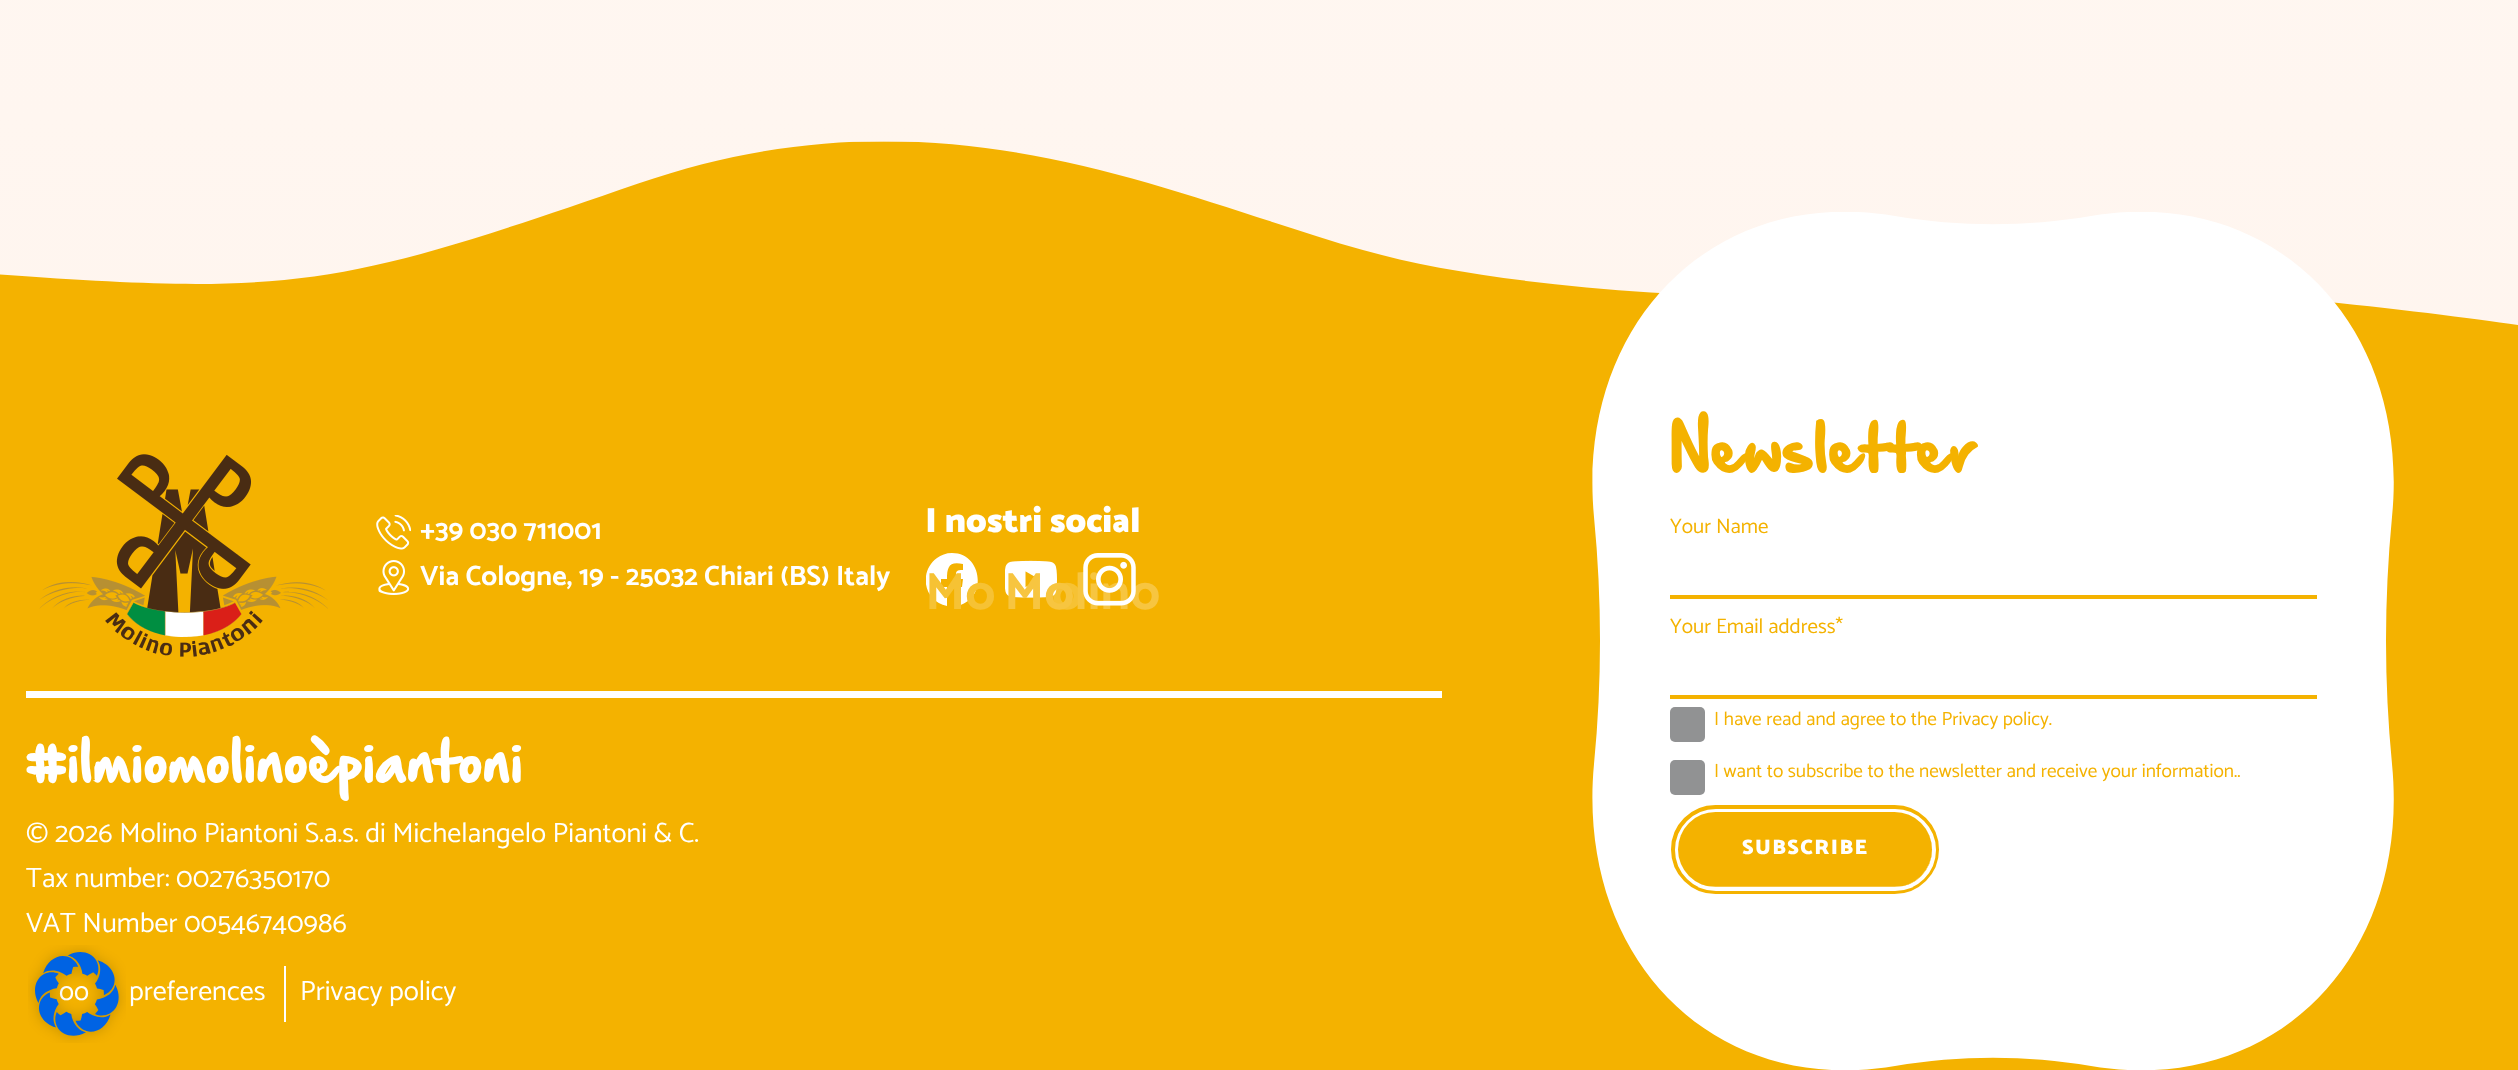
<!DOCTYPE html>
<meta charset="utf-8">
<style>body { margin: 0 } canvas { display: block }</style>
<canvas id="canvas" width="2518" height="1070"></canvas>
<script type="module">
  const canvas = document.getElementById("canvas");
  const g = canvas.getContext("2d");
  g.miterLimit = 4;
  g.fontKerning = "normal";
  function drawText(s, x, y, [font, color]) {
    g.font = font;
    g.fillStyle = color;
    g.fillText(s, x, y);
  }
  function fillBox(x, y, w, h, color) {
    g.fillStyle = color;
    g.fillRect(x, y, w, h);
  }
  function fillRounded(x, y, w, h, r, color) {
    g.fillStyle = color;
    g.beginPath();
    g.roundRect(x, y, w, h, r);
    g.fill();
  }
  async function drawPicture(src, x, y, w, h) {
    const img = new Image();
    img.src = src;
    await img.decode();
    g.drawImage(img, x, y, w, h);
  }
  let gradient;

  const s1 = ["100 28px Catamaran", "#FFFFFF"];
  const s2 = ["100 35px 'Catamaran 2'", "#FFFFFF"];
  const s3 = ["100 52.5px Catamaran", "#F6C234"];
  const s4 = ["100 52.5px Catamaran", "#F7C540"];
  const s5 = ["bold 49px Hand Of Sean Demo", "#FFFFFF"];
  const s6 = ["100 28px 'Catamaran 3'", "#FFFFFF"];
  const s7 = ["bold 56px Hand Of Sean Demo", "#F4B200"];
  const s8 = ["100 21px 'Catamaran 3'", "#F4B200"];
  const s9 = ["100 19.25px 'Catamaran 3'", "#F4B200"];
  const s10 = ["100 21px 'Catamaran 2'", "#FFFFFF"];

  fillBox(0, 0, 2518, 1070, "#FFFFFF");
  gradient = g.createLinearGradient(1259, 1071, 1259, -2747);
  gradient.addColorStop(0, "#FFF3EB");
  gradient.addColorStop(1, "#FFFFFF");
  g.fillStyle = gradient;
  g.fillRect(0, 0, 2518, 325);
  await drawPicture("pic1.png", 0, 141, 2518, 929);
  fillBox(26, 691, 1416, 7, "#FFFFFF");
  await drawPicture("pic2.png", 39, 454, 289, 203);
  await drawPicture("pic3.png", 376, 515, 35, 35);
  drawText("+39 030 711001", 420, 539, s1);
  await drawPicture("pic4.png", 378, 560, 32, 35);
  drawText("Via Cologne, 19 - 25032 Chiari (BS) Italy", 420, 585, s1);
  drawText("I nostri social", 925, 532, s2);
  drawText("o", 1052, 609, s3);
  await drawPicture("pic6.png", 1005, 560, 52, 38);
  drawText("Molino", 1004, 609, s4);
  await drawPicture("pic5.png", 1083, 553, 53, 53);
  g.save();
  g.beginPath();
  g.rect(926, 553, 52, 53);
  g.clip();
  g.fillStyle = "#FFFFFF";
  g.beginPath();
  g.moveTo(956, 606);
  g.lineTo(956, 587);
  g.lineTo(962, 587);
  g.lineTo(963, 579);
  g.lineTo(956, 579);
  g.bezierCurveTo(956, 572, 955, 570, 963, 570);
  g.lineTo(963, 564);
  g.bezierCurveTo(949, 561, 947, 567, 947, 579);
  g.lineTo(941, 579);
  g.lineTo(941, 587);
  g.lineTo(947, 587);
  g.lineTo(947, 606);
  g.bezierCurveTo(924, 602, 918, 572, 937, 558);
  g.bezierCurveTo(941, 555, 946, 553, 952, 553);
  g.bezierCurveTo(983, 553, 988, 601, 956, 606);
  g.fill();
  g.restore();
  drawText("Mo", 925, 609, s3);
  drawText("#ilmiomolinoèpiantoni", 26, 783, s5);
  drawText("© 2026 Molino Piantoni S.a.s. di Michelangelo Piantoni & C.", 26, 842, s6);
  drawText("Tax number: 00276350170", 26, 887, s6);
  drawText("VAT Number 00546740986", 26, 932, s6);
  drawText("oo", 59, 1000, s6);
  drawText("preferences", 129, 1000, s6);
  fillBox(284, 966, 2, 56, "#FFFFFF");
  drawText("Privacy policy", 300, 1000, s6);
  g.save();
  g.beginPath();
  g.rect(1495, 212, 997, 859);
  g.clip();
  g.beginPath();
  g.moveTo(2091, 216);
  g.bezierCurveTo(2274, 185, 2411, 325, 2392, 517);
  g.bezierCurveTo(2384, 600, 2384, 682, 2392, 764);
  g.bezierCurveTo(2411, 957, 2274, 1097, 2091, 1066);
  g.bezierCurveTo(2026, 1055, 1960, 1055, 1895, 1066);
  g.bezierCurveTo(1712, 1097, 1576, 957, 1594, 764);
  g.bezierCurveTo(1602, 682, 1602, 600, 1594, 517);
  g.bezierCurveTo(1576, 325, 1712, 185, 1895, 216);
  g.bezierCurveTo(1960, 227, 2026, 227, 2091, 216);
  g.fill();
  g.restore();
  drawText("Newsletter", 1670, 473, s7);
  drawText("Your Name", 1670, 533, s8);
  fillBox(1670, 595, 647, 4, "#F4B200");
  drawText("Your Email address*", 1670, 633, s8);
  fillBox(1670, 695, 647, 4, "#F4B200");
  fillRounded(1670, 707, 35, 35, 5, "#919293");
  drawText("I have read and agree to the Privacy policy.", 1714, 725, s9);
  fillRounded(1670, 760, 35, 35, 5, "#919293");
  drawText("I want to subscribe to the newsletter and receive your information..", 1714, 777, s9);
  g.beginPath();
  g.roundRect(1674.5, 808.5, 261, 82, 41);
  g.strokeStyle = "#F4B200";
  g.lineWidth = 7;
  g.stroke();
  g.beginPath();
  g.roundRect(1677, 811, 257, 78, 39);
  g.strokeStyle = "#FFFFFF";
  g.lineWidth = 4;
  g.stroke();
  fillRounded(1678, 812, 254, 75, 37.5, "#F4B200");
  fillBox(1698, 886, 215, 2, "rgba(255, 255, 255, 0.25)");
  g.letterSpacing = "1.5px";
  drawText("SUBSCRIBE", 1742, 854, s10);
  await drawPicture("pic7.png", 28, 945, 98, 98);
</script>
